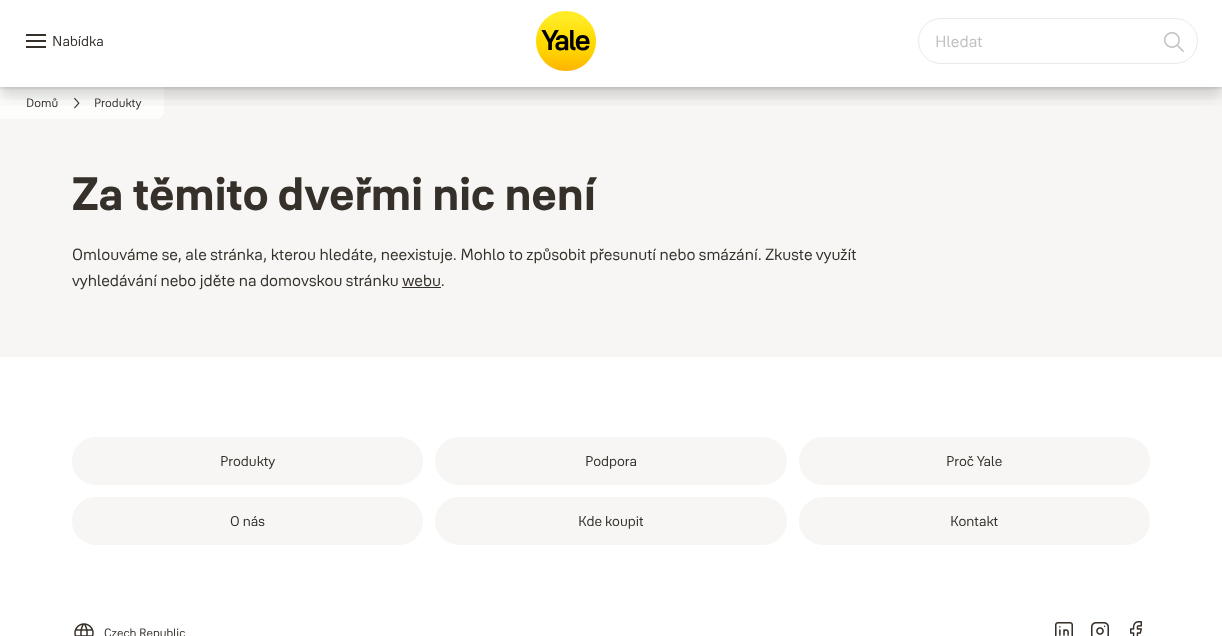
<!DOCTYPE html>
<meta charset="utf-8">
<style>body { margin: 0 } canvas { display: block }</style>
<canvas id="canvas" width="1222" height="636"></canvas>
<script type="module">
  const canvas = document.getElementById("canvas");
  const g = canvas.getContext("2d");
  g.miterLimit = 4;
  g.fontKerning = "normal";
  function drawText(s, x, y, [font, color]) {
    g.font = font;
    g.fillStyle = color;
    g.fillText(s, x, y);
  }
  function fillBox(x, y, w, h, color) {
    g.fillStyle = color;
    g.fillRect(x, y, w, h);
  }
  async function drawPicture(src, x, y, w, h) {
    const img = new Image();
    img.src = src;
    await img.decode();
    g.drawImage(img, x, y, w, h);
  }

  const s1 = ["14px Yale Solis", "#36302A"];
  const s2 = ["16px Yale Solis", "#C3C1BF"];
  const s3 = ["12px Yale Solis", "#36302A"];
  const s4 = ["bold 46px Yale Solis", "#36302A"];
  const s5 = ["16px Yale Solis", "#36302A"];

  fillBox(0, 0, 1222, 636, "#FFFFFF");
  fillBox(26, 34, 20, 2, "#36302A");
  fillBox(26, 40, 20, 2, "#36302A");
  fillBox(26, 46, 20, 2, "#36302A");
  await drawPicture("pic1.png", 536, 11, 60, 60);
  g.beginPath();
  g.roundRect(918.5, 18.5, 279, 45, 22.5);
  g.strokeStyle = "#EDE8E4";
  g.stroke();
  await drawPicture("pic2.png", 1164, 32, 20, 20);
  fillBox(0, 87, 1222, 270, "#F7F6F4");
  g.fillStyle = "#FDFDFC";
  g.beginPath();
  g.roundRect(0, 87, 164, 32, [0, 0, 8, 0]);
  g.fill();
  g.save();
  g.beginPath();
  g.rect(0, 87, 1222, 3);
  g.clip();
  g.fillStyle = "rgba(0, 0, 0, 0.15)";
  g.filter = "blur(2px)";
  g.beginPath();
  g.rect(0, -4, 1222, 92);
  g.fill();
  g.filter = "none";
  g.restore();
  await drawPicture("pic3.png", 74, 97, 6, 12);
  g.save();
  g.beginPath();
  g.rect(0, 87, 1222, 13);
  g.clip();
  g.fillStyle = "rgba(0, 0, 0, 0.1)";
  g.filter = "blur(6px)";
  g.beginPath();
  g.rect(0, 3, 1222, 92);
  g.fill();
  g.filter = "none";
  g.restore();
  g.save();
  g.beginPath();
  g.rect(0, 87, 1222, 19);
  g.clip();
  g.fillStyle = "rgba(0, 0, 0, 0.05)";
  g.filter = "blur(10px)";
  g.beginPath();
  g.rect(0, 11, 1222, 92);
  g.fill();
  g.filter = "none";
  g.restore();
  drawText("Nabídka", 52, 46, s1);
  drawText("Hledat", 935, 47, s2);
  drawText("Domů", 26, 107, s3);
  drawText("Produkty", 94, 107, s3);
  drawText("Za těmito dveřmi nic není", 72, 210, s4);
  drawText("Omlouváme se, ale stránka, kterou hledáte, neexistuje. Mohlo to způsobit přesunutí nebo smázání. Zkuste využít", 72, 260, s5);
  drawText("vyhledávání nebo jděte na domovskou stránku webu.", 72, 286, s5);
  fillBox(402, 287, 39, 1, "#36302A");
  g.fillStyle = "#F7F6F4";
  g.beginPath();
  g.roundRect(73, 438, 349, 46, 23);
  g.fill();
  g.strokeStyle = "#F7F6F4";
  g.lineWidth = 2;
  g.stroke();
  drawText("Produkty", 220, 466, s1);
  g.fillStyle = "#F7F6F4";
  g.beginPath();
  g.roundRect(436, 438, 350, 46, 23);
  g.fill();
  g.stroke();
  drawText("Podpora", 585, 466, s1);
  g.fillStyle = "#F7F6F4";
  g.beginPath();
  g.roundRect(800, 438, 349, 46, 23);
  g.fill();
  g.stroke();
  drawText("Proč Yale", 946, 466, s1);
  g.fillStyle = "#F7F6F4";
  g.beginPath();
  g.roundRect(73, 498, 349, 46, 23);
  g.fill();
  g.stroke();
  drawText("O nás", 230, 526, s1);
  g.fillStyle = "#F7F6F4";
  g.beginPath();
  g.roundRect(436, 498, 350, 46, 23);
  g.fill();
  g.stroke();
  drawText("Kde koupit", 578, 526, s1);
  g.fillStyle = "#F7F6F4";
  g.beginPath();
  g.roundRect(800, 498, 349, 46, 23);
  g.fill();
  g.stroke();
  drawText("Kontakt", 950, 526, s1);
  await drawPicture("pic4.png", 74, 623, 20, 13);
  drawText("Czech Republic", 104, 637, s3);
  await drawPicture("pic5.png", 1055, 622, 18, 14);
  await drawPicture("pic6.png", 1091, 622, 18, 14);
  await drawPicture("pic7.png", 1130, 621, 12, 15);
</script>
